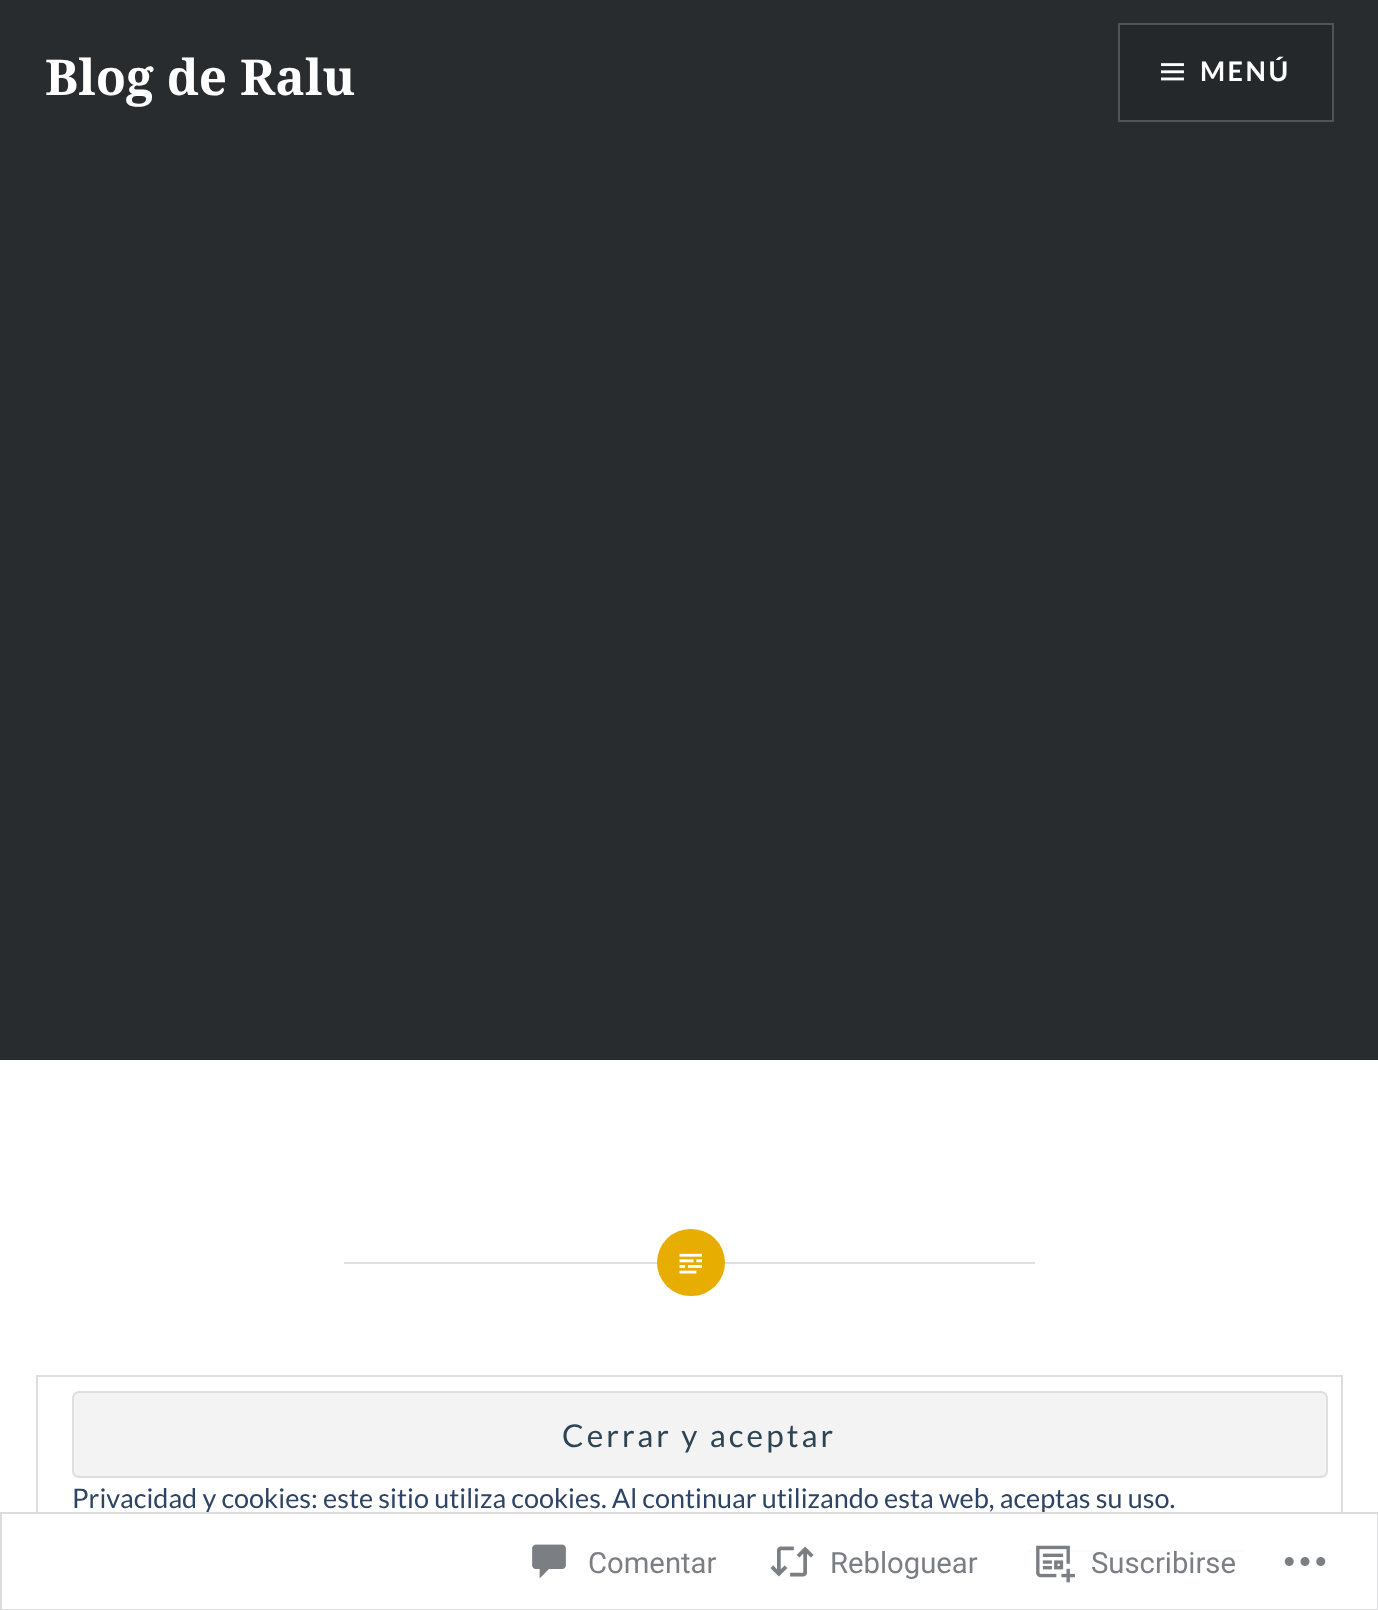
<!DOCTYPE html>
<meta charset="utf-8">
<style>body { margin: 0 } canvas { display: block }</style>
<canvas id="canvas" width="1378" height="1610"></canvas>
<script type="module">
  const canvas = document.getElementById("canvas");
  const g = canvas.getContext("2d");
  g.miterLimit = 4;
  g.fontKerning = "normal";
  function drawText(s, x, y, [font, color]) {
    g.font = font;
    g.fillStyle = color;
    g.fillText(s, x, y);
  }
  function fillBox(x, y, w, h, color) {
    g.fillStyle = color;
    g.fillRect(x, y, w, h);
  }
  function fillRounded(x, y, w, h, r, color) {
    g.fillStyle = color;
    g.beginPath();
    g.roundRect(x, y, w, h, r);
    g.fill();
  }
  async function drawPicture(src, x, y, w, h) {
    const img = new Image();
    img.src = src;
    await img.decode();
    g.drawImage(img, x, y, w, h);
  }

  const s1 = ["bold 49.5px Noto Serif", "#FFFFFF"];
  const s2 = ["bold 27px Lato", "#FFFFFF"];
  const s3 = ["31.5px Lato", "#2E4453"];
  const s4 = ["27px Lato", "#2E4467"];
  const s5 = ["29.25px Roboto", "#7B7F84"];

  fillBox(0, 0, 1378, 1610, "#FFFFFF");
  fillBox(0, 0, 1378, 1060, "#292C2F");
  fillBox(344, 1262, 691, 2, "#E0E0E0");
  fillRounded(657, 1229, 68, 67, 33.5, "#E7AE01");
  await drawPicture("pic1.png", 679, 1253, 23, 21);
  drawText("Blog de Ralu", 45, 95, s1);
  g.fillStyle = "#25282A";
  g.beginPath();
  g.rect(1119, 24, 214, 97);
  g.fill();
  g.strokeStyle = "#515355";
  g.lineWidth = 2;
  g.stroke();
  await drawPicture("pic2.png", 1161, 63, 23, 18);
  g.letterSpacing = "2.5px";
  drawText("MENÚ", 1200, 81, s2);
  g.strokeStyle = "#DEDEDE";
  g.strokeRect(37, 1376, 1305, 198);
  g.fillStyle = "#F3F3F3";
  g.beginPath();
  g.roundRect(73, 1392, 1254, 85, 6);
  g.fill();
  g.stroke();
  g.letterSpacing = "3.1px";
  drawText("Cerrar y aceptar", 562, 1447, s3);
  g.letterSpacing = "0px";
  drawText("Privacidad y cookies: este sitio utiliza cookies. Al continuar utilizando esta web, aceptas su uso.", 72, 1508, s4);
  fillBox(1026, 1550, 218, 2, "#2E4467");
  fillBox(36, 1512, 1307, 63, "rgba(255, 255, 255, 0.98)");
  g.strokeStyle = "rgba(220, 220, 222, 0.98)";
  g.strokeRect(1, 1513, 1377, 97);
  await drawPicture("pic3.png", 532, 1544, 34, 35);
  drawText("Comentar", 588, 1573, s5);
  await drawPicture("pic4.png", 770, 1546, 44, 31);
  drawText("Rebloguear", 830, 1573, s5);
  await drawPicture("pic5.png", 1036, 1545, 39, 38);
  drawText("Suscribirse", 1091, 1573, s5);
  await drawPicture("pic6.png", 1284, 1557, 42, 9);
</script>
